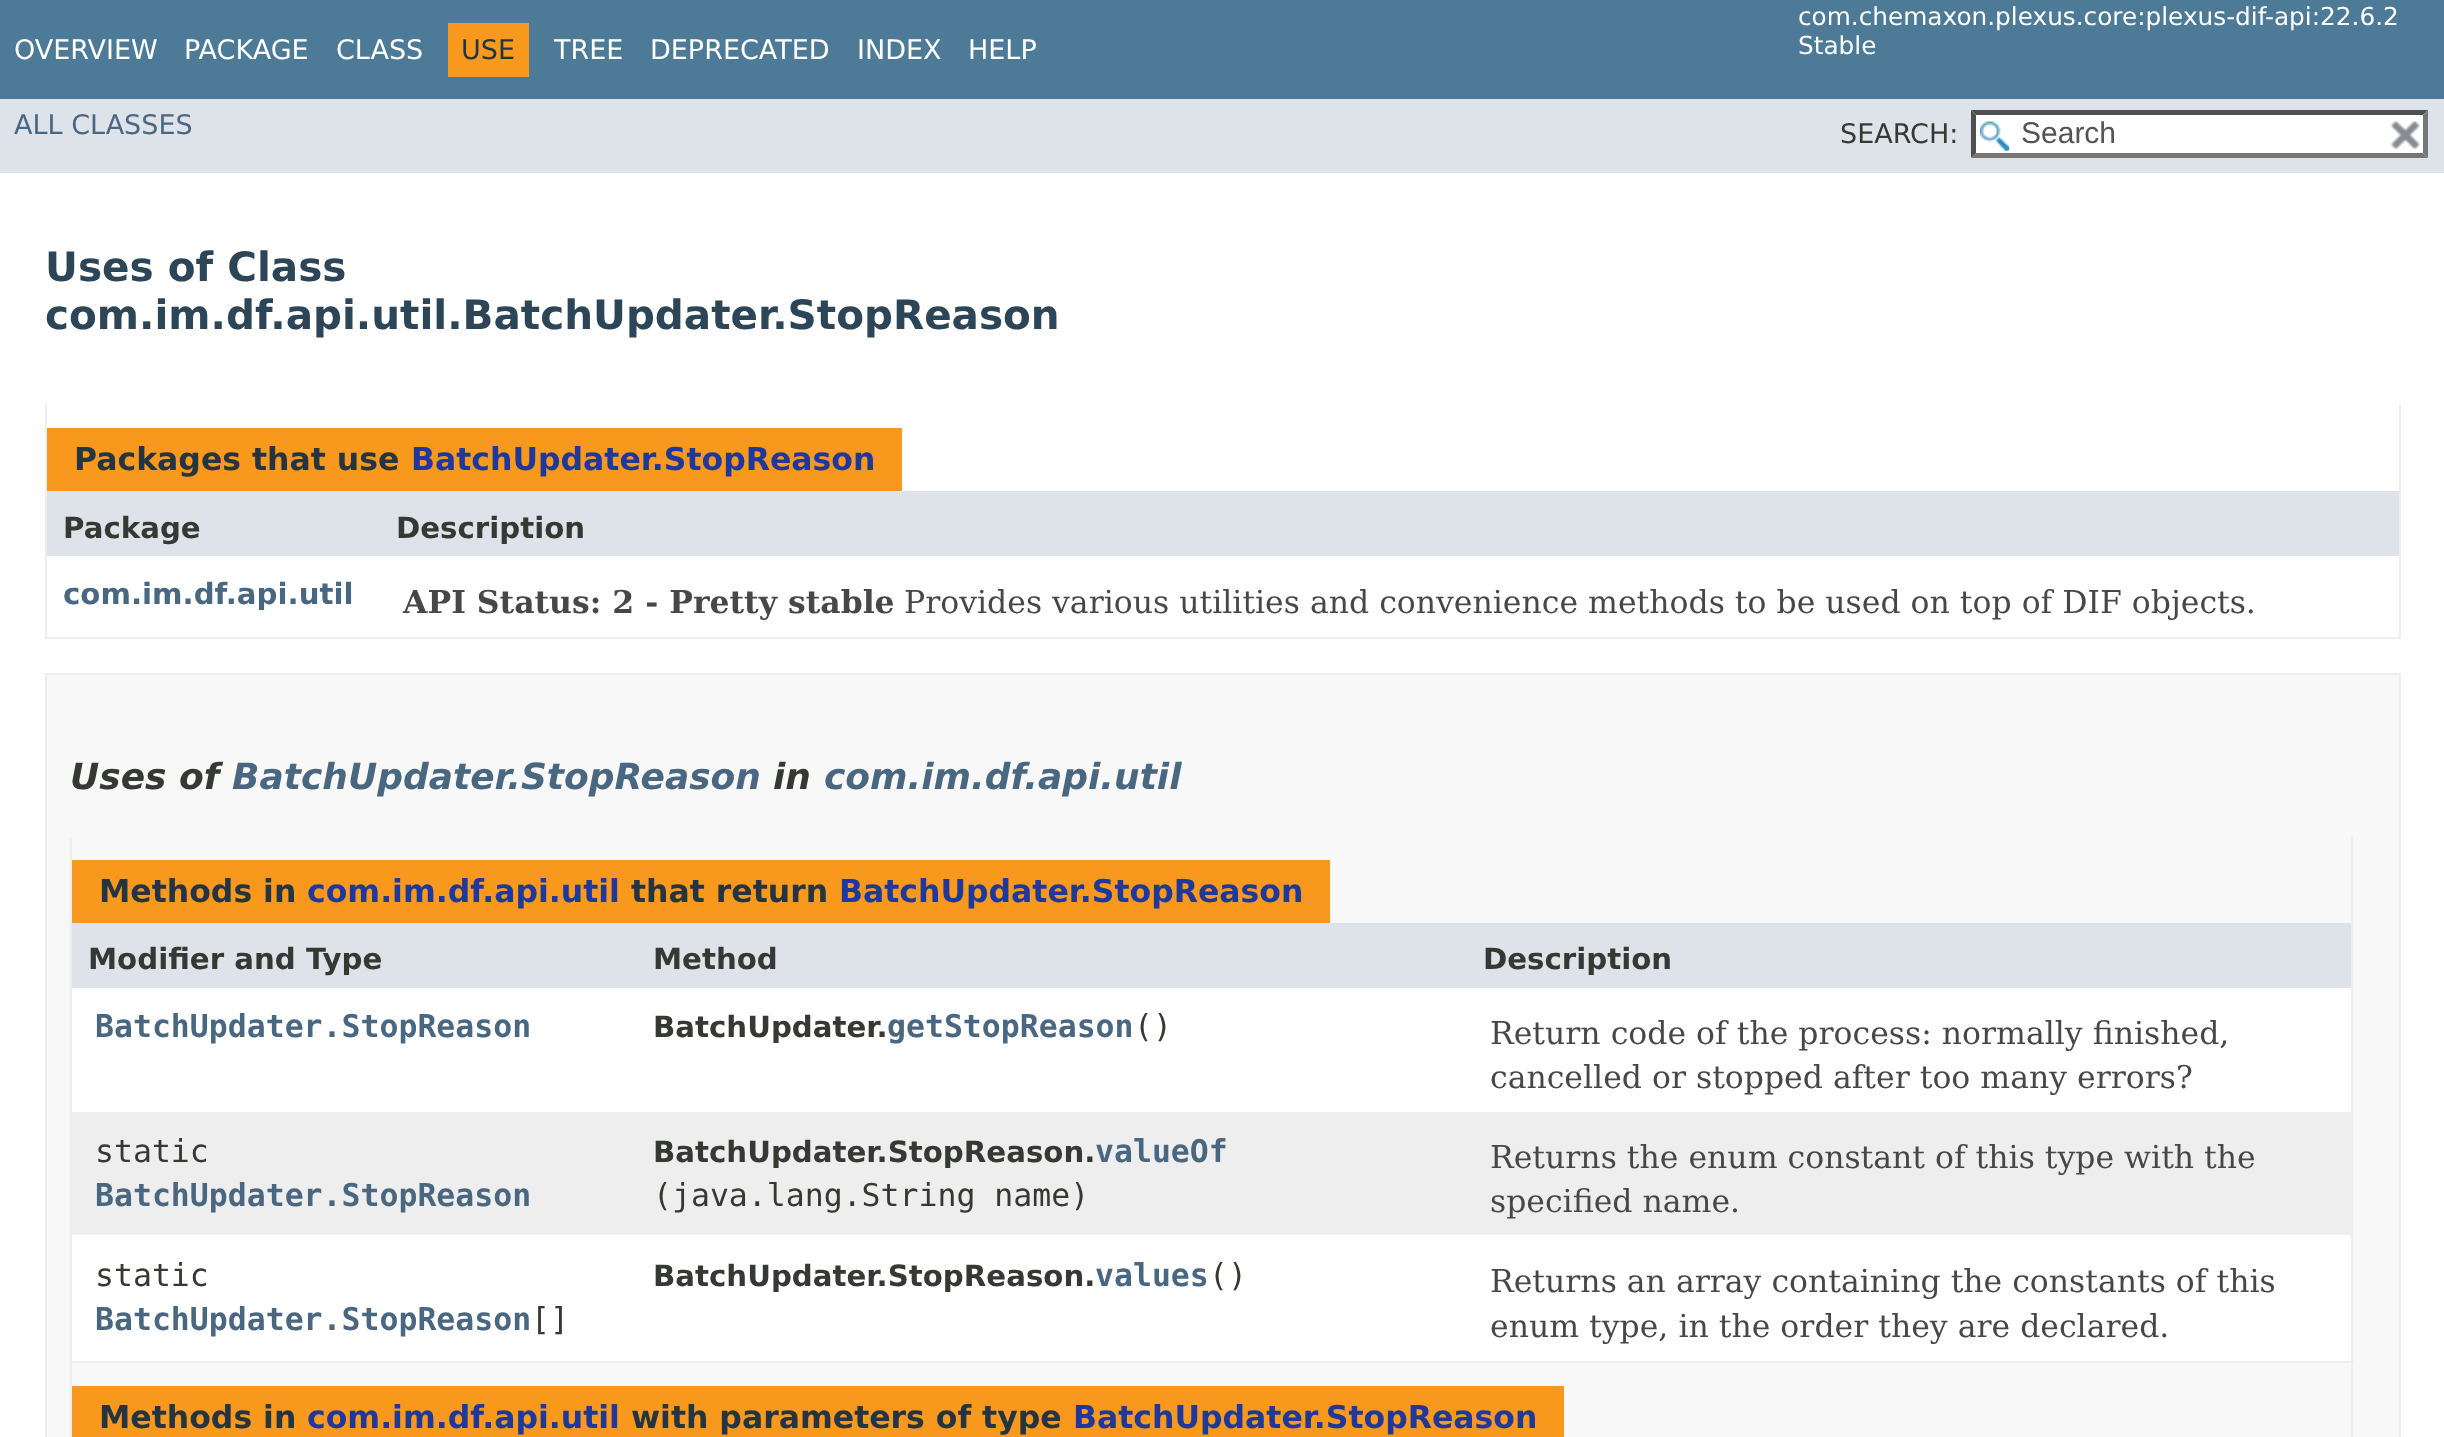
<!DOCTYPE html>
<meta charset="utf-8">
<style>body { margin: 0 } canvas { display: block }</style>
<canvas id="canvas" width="2444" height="1437"></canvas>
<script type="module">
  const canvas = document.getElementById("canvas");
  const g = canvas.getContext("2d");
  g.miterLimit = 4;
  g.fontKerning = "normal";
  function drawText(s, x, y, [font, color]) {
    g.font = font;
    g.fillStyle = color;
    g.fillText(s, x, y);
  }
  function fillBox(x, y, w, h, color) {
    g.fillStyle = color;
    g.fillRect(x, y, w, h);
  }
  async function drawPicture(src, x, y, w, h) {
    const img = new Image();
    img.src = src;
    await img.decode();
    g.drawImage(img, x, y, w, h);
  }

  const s1 = ["27px DejaVu Sans", "#FFFFFF"];
  const s2 = ["27px DejaVu Sans", "#253441"];
  const s3 = ["24.75px DejaVu Sans", "#FFFFFF"];
  const s4 = ["27px DejaVu Sans", "#4A6782"];
  const s5 = ["27px DejaVu Sans", "#353833"];
  const s6 = ["30px Liberation Sans", "#545454"];
  const s7 = ["bold 40.5px DejaVu Sans", "#2C4557"];
  const s8 = ["bold 31.5px DejaVu Sans", "#253441"];
  const s9 = ["bold 31.5px DejaVu Sans", "#1F389C"];
  const s10 = ["bold 29.25px DejaVu Sans", "#353833"];
  const s11 = ["bold 29.25px DejaVu Sans", "#4A6782"];
  const s12 = ["bold 31.5px DejaVu Serif", "#474747"];
  const s13 = ["31.5px DejaVu Serif", "#474747"];
  const s14 = ["italic bold 36px DejaVu Sans", "#353833"];
  const s15 = ["italic bold 36px DejaVu Sans", "#4A6782"];
  const s16 = ["bold 31.5px DejaVu Sans Mono", "#4A6782"];
  const s17 = ["31.5px DejaVu Sans Mono", "#353833"];

  fillBox(0, 0, 2444, 1437, "#FFFFFF");
  fillBox(0, 0, 2444, 99, "#4D7A97");
  drawText("OVERVIEW", 14, 59, s1);
  drawText("PACKAGE", 184, 59, s1);
  drawText("CLASS", 336, 59, s1);
  fillBox(448, 23, 81, 54, "#F8981D");
  drawText("USE", 461, 59, s2);
  drawText("TREE", 554, 59, s1);
  drawText("DEPRECATED", 650, 59, s1);
  drawText("INDEX", 857, 59, s1);
  drawText("HELP", 968, 59, s1);
  drawText("com.chemaxon.plexus.core:plexus-dif-api:22.6.2", 1798, 25, s3);
  drawText("Stable", 1798, 54, s3);
  fillBox(0, 99, 2444, 74, "#DEE3E9");
  drawText("ALL CLASSES", 14, 134, s4);
  drawText("SEARCH:", 1840, 143, s5);
  fillBox(1971, 110, 457, 48, "#FFFFFF");
  await drawPicture("pic1.png", 1980, 121, 30, 30);
  g.fillStyle = "#4F4F4F";
  g.beginPath();
  g.moveTo(1971, 110);
  g.lineTo(2428, 110);
  g.lineTo(2423, 115);
  g.lineTo(1976, 115);
  g.closePath();
  g.fill();
  g.fillStyle = "#767676";
  g.beginPath();
  g.moveTo(2428, 110);
  g.lineTo(2428, 158);
  g.lineTo(2423, 153);
  g.lineTo(2423, 115);
  g.closePath();
  g.fill();
  g.beginPath();
  g.moveTo(2428, 158);
  g.lineTo(1971, 158);
  g.lineTo(1976, 153);
  g.lineTo(2423, 153);
  g.closePath();
  g.fill();
  g.fillStyle = "#4F4F4F";
  g.beginPath();
  g.moveTo(1971, 158);
  g.lineTo(1971, 110);
  g.lineTo(1976, 115);
  g.lineTo(1976, 153);
  g.closePath();
  g.fill();
  drawText("Search", 2021, 143, s6);
  await drawPicture("pic2.png", 2390, 121, 30, 28);
  drawText("Uses of Class", 45, 281, s7);
  drawText("com.im.df.api.util.BatchUpdater.StopReason", 45, 329, s7);
  fillBox(2399, 405, 2, 234, "#EEEEEE");
  fillBox(45, 637, 2356, 2, "#EEEEEE");
  fillBox(45, 405, 2, 234, "#EEEEEE");
  fillBox(47, 428, 855, 63, "#F8981D");
  drawText("Packages that use", 74, 470, s8);
  drawText("BatchUpdater.StopReason", 411, 470, s9);
  fillBox(47, 491, 2352, 65, "#DEE3E9");
  drawText("Package", 63, 538, s10);
  drawText("Description", 396, 538, s10);
  drawText("com.im.df.api.util", 63, 604, s11);
  drawText("API Status: 2 - Pretty stable", 403, 613, s12);
  drawText("Provides various utilities and convenience methods to be used on top of DIF objects.", 904, 613, s13);
  g.fillStyle = "#F8F8F8";
  g.beginPath();
  g.rect(46, 674, 2354, 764);
  g.fill();
  g.strokeStyle = "#EDEDED";
  g.lineWidth = 2;
  g.stroke();
  drawText("Uses of", 70, 789, s14);
  drawText("BatchUpdater.StopReason", 232, 789, s15);
  drawText("in", 773, 789, s14);
  drawText("com.im.df.api.util", 824, 789, s15);
  fillBox(2351, 837, 2, 600, "#EEEEEE");
  fillBox(70, 1361, 2284, 2, "#EEEEEE");
  fillBox(70, 837, 2, 600, "#EEEEEE");
  fillBox(72, 860, 1258, 63, "#F8981D");
  drawText("Methods in", 99, 902, s8);
  drawText("com.im.df.api.util", 307, 902, s9);
  drawText("that return", 631, 902, s8);
  drawText("BatchUpdater.StopReason", 839, 902, s9);
  fillBox(72, 923, 2279, 65, "#DEE3E9");
  drawText("Modifier and Type", 88, 969, s10);
  drawText("Method", 653, 969, s10);
  drawText("Description", 1483, 969, s10);
  fillBox(72, 988, 2279, 124, "#FFFFFF");
  drawText("BatchUpdater.StopReason", 95, 1037, s16);
  drawText("BatchUpdater.", 653, 1037, s10);
  drawText("getStopReason", 887, 1037, s16);
  drawText("()", 1134, 1037, s17);
  drawText("Return code of the process: normally finished,", 1490, 1044, s13);
  drawText("cancelled or stopped after too many errors?", 1490, 1088, s13);
  fillBox(72, 1112, 2279, 123, "#EEEEEF");
  drawText("static", 95, 1162, s17);
  drawText("BatchUpdater.StopReason", 95, 1206, s16);
  drawText("BatchUpdater.StopReason.", 653, 1162, s10);
  drawText("valueOf", 1095, 1162, s16);
  drawText("(java.lang.String name)", 653, 1206, s17);
  drawText("Returns the enum constant of this type with the", 1490, 1168, s13);
  drawText("specified name.", 1490, 1212, s13);
  fillBox(72, 1235, 2279, 126, "#FFFFFF");
  drawText("static", 95, 1286, s17);
  drawText("BatchUpdater.StopReason", 95, 1330, s16);
  drawText("[]", 531, 1330, s17);
  drawText("BatchUpdater.StopReason.", 653, 1286, s10);
  drawText("values", 1095, 1286, s16);
  drawText("()", 1209, 1286, s17);
  drawText("Returns an array containing the constants of this", 1490, 1292, s13);
  drawText("enum type, in the order they are declared.", 1490, 1337, s13);
  fillBox(72, 1386, 1492, 51, "#F8981D");
  drawText("Methods in", 99, 1428, s8);
  drawText("com.im.df.api.util", 307, 1428, s9);
  drawText("with parameters of type", 631, 1428, s8);
  drawText("BatchUpdater.StopReason", 1073, 1428, s9);
</script>
